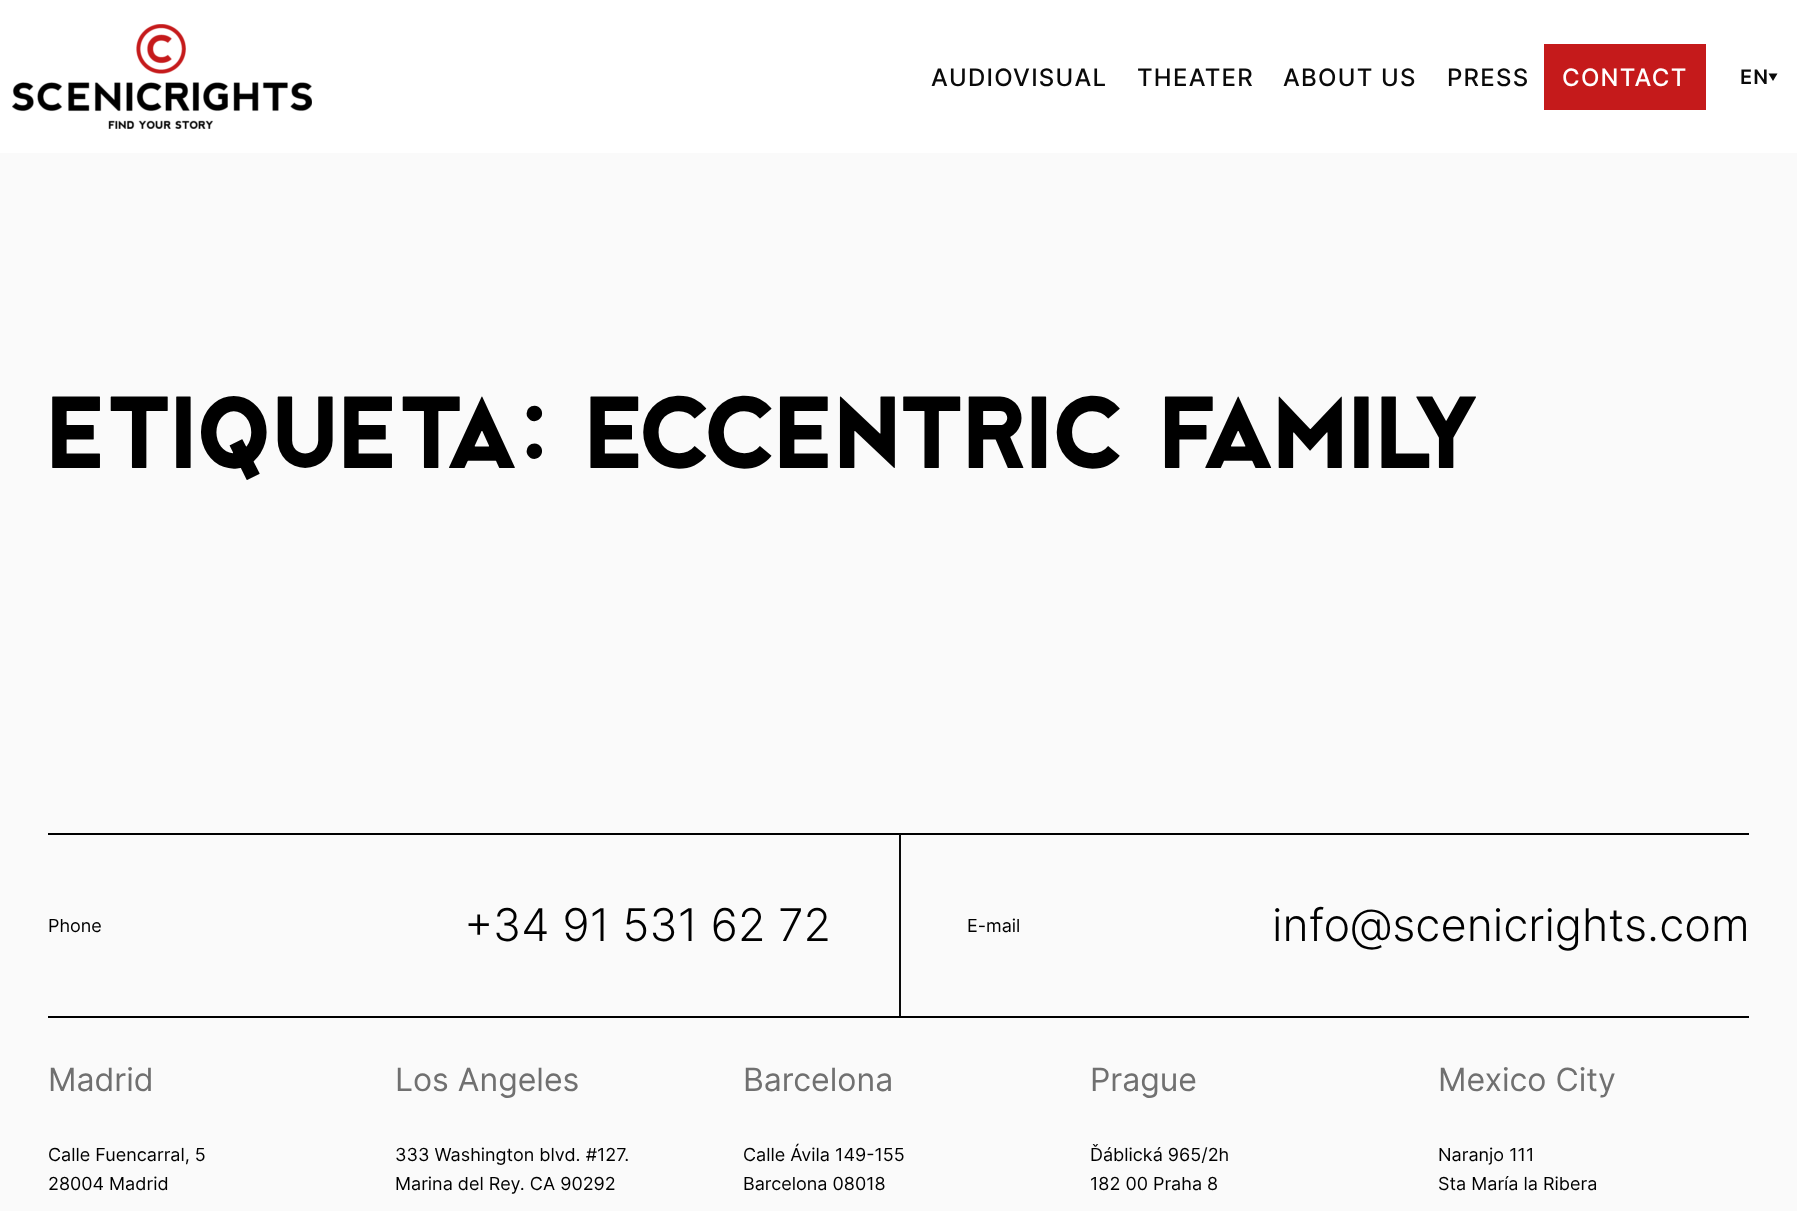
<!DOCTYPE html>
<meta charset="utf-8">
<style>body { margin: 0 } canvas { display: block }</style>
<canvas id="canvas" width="1797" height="1211"></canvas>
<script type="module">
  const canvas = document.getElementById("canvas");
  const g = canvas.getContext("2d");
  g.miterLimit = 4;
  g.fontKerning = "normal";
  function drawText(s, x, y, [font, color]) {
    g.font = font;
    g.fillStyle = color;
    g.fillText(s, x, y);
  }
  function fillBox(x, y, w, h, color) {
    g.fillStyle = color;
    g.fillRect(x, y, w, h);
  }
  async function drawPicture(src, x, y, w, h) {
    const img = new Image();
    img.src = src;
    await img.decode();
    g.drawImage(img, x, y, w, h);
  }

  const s1 = ["500 24px Inter", "#0A0A0A"];
  const s2 = ["500 24px Inter", "#FFFFFF"];
  const s3 = ["600 20px Inter", "#0A0A0A"];
  const s4 = ["105.2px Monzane", "#000000"];
  const s5 = ["18px Inter", "#000000"];
  const s6 = ["300 45.1px Inter", "#000000"];
  const s7 = ["32px Inter", "#707070"];

  fillBox(0, 0, 1797, 1211, "#FAFAFA");
  fillBox(0, 0, 1797, 153, "#FFFFFF");
  await drawPicture("pic1.png", 12, 24, 300, 105);
  g.letterSpacing = "1.25px";
  drawText("AUDIOVISUAL", 931, 86, s1);
  drawText("THEATER", 1137, 86, s1);
  drawText("ABOUT US", 1283, 86, s1);
  drawText("PRESS", 1447, 86, s1);
  fillBox(1544, 44, 162, 66, "#C51A1B");
  drawText("CONTACT", 1562, 86, s2);
  g.letterSpacing = "1px";
  drawText("EN", 1740, 84, s3);
  g.beginPath();
  g.moveTo(1768.5, 73.5);
  g.lineTo(1777.5, 73.5);
  g.lineTo(1773, 81);
  g.closePath();
  g.fill();
  g.letterSpacing = "0px";
  drawText("ETIQUETA: ECCENTRIC FAMILY", 48, 468, s4);
  fillBox(48, 833, 1701, 2, "#000000");
  fillBox(48, 1016, 1701, 2, "#000000");
  drawText("Phone", 48, 932, s5);
  drawText("+34 91 531 62 72", 464, 941, s6);
  fillBox(899, 834, 2, 182, "#0A0A0A");
  drawText("E-mail", 967, 932, s5);
  drawText("info@scenicrights.com", 1272, 941, s6);
  drawText("Madrid", 48, 1091, s7);
  drawText("Calle Fuencarral, 5", 48, 1161, s5);
  drawText("28004 Madrid", 48, 1190, s5);
  drawText("Los Angeles", 395, 1091, s7);
  drawText("333 Washington blvd. #127.", 395, 1161, s5);
  drawText("Marina del Rey. CA 90292", 395, 1190, s5);
  drawText("Barcelona", 743, 1091, s7);
  drawText("Calle Ávila 149-155", 743, 1161, s5);
  drawText("Barcelona 08018", 743, 1190, s5);
  drawText("Prague", 1090, 1091, s7);
  drawText("Ďáblická 965/2h", 1090, 1161, s5);
  drawText("182 00 Praha 8", 1090, 1190, s5);
  drawText("Mexico City", 1438, 1091, s7);
  drawText("Naranjo 111", 1438, 1161, s5);
  drawText("Sta María la Ribera", 1438, 1190, s5);
</script>
